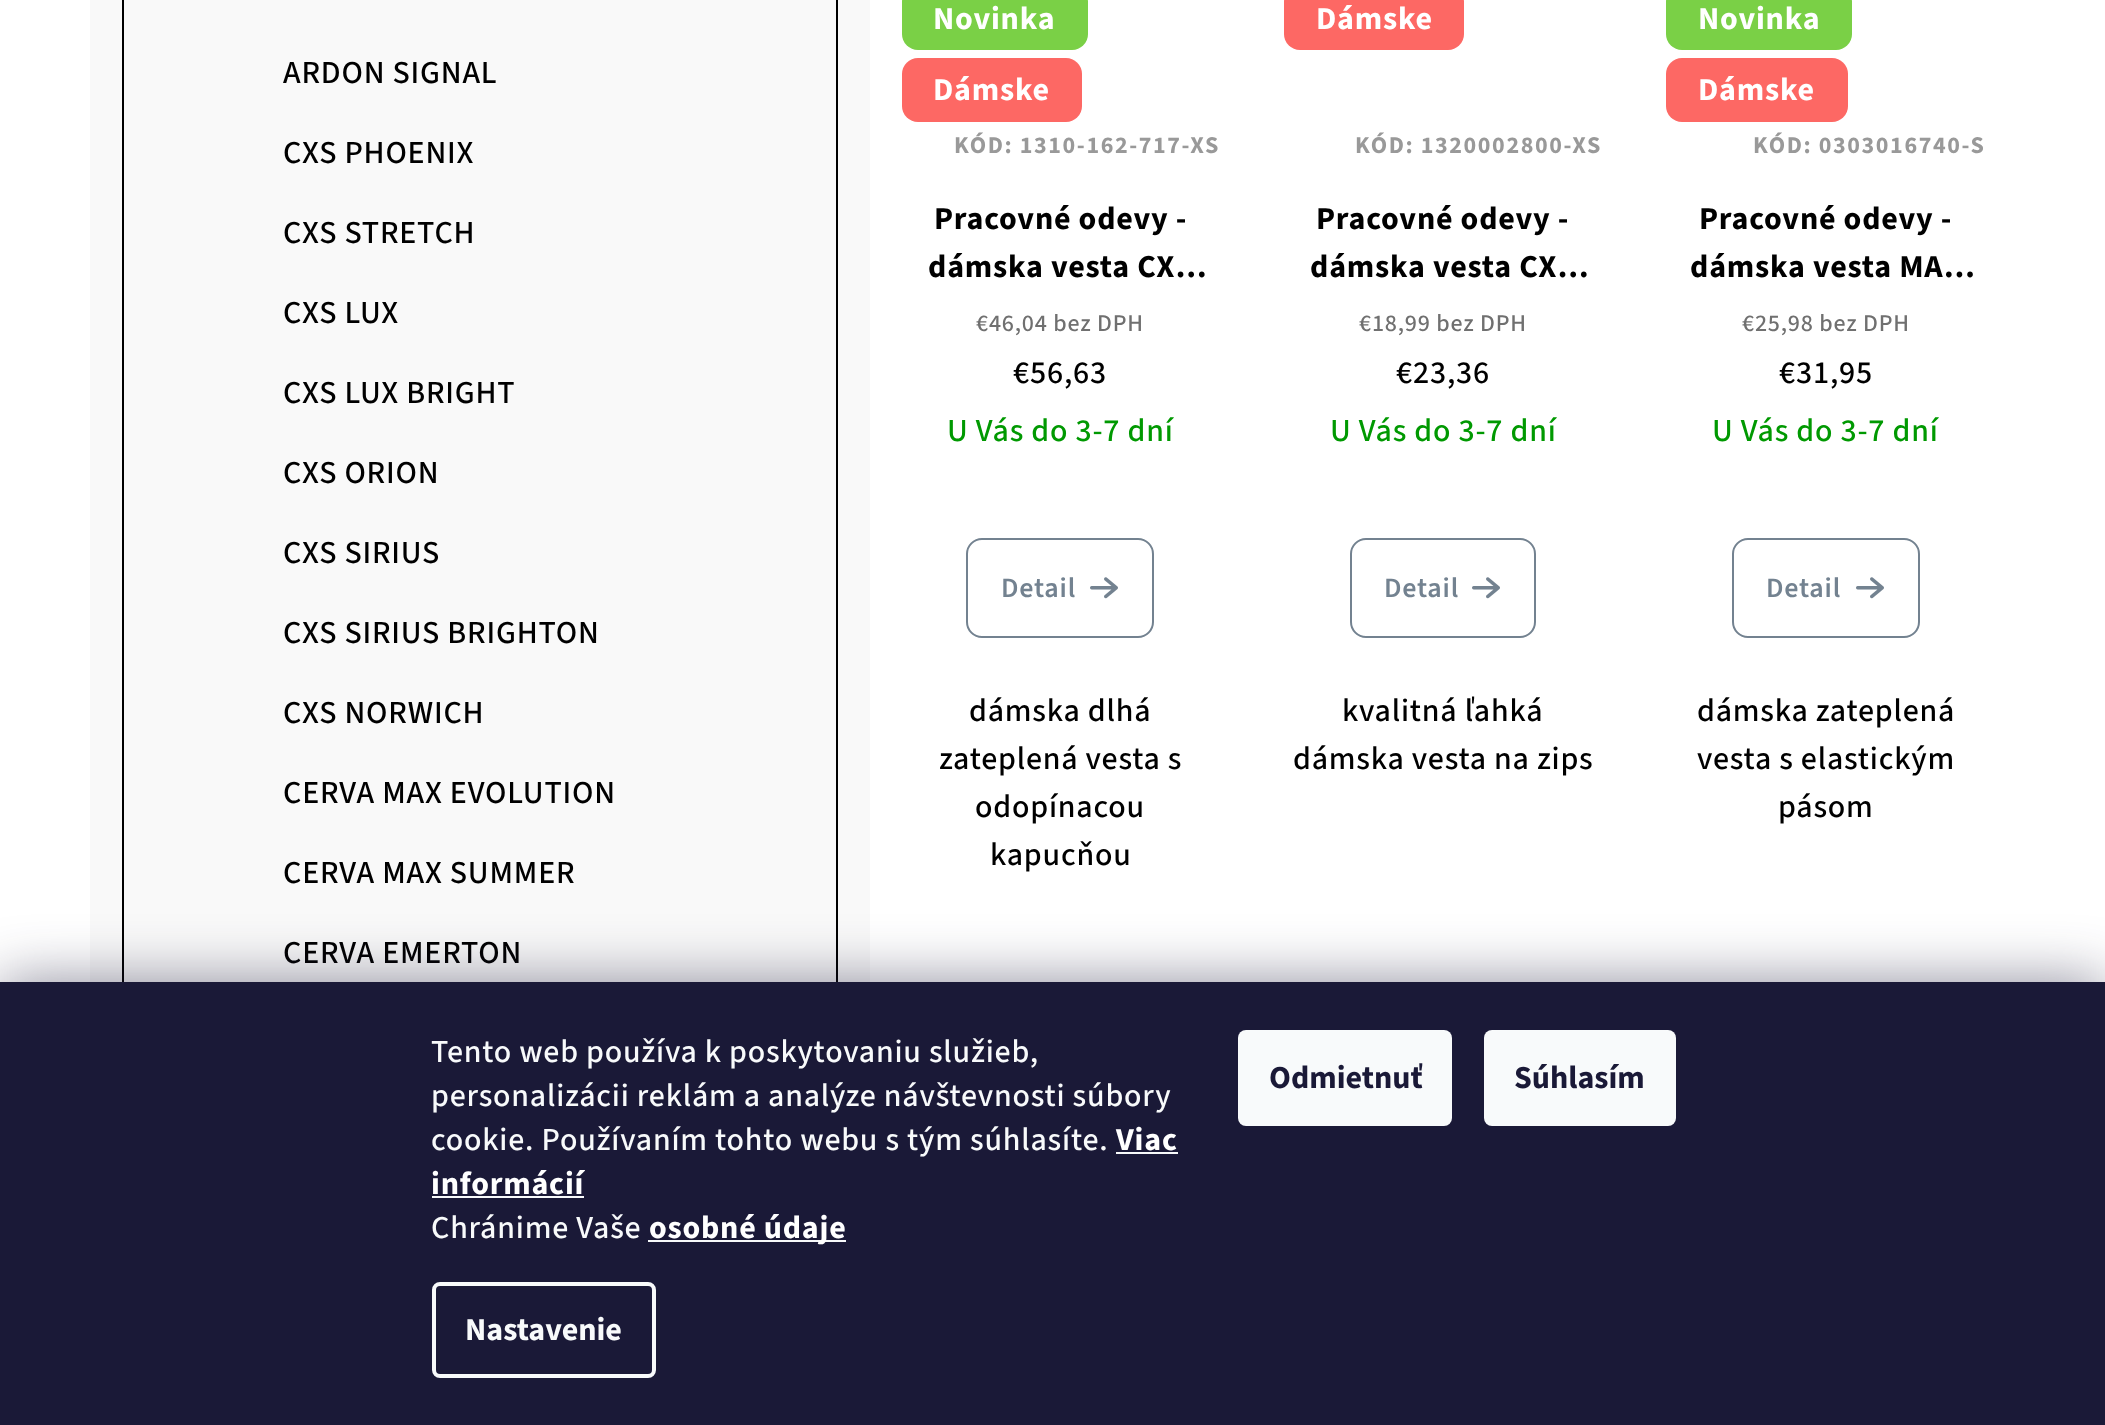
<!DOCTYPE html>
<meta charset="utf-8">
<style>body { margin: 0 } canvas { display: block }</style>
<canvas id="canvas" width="2105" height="1425"></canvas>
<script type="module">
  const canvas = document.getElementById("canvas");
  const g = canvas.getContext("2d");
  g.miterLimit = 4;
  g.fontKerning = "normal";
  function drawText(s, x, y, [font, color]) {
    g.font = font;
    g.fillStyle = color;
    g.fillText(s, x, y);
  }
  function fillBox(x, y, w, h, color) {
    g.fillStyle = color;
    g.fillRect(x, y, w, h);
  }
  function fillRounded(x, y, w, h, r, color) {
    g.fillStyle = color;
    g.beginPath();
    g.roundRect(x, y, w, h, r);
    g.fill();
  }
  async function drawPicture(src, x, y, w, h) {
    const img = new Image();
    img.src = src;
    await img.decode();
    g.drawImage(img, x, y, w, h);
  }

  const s1 = ["500 32px 'Source Sans 3'", "#000000"];
  const s2 = ["bold 32px 'Source Sans 3'", "#FFFFFF"];
  const s3 = ["bold 24px 'Source Sans 3'", "#999999"];
  const s4 = ["bold 32px 'Source Sans 3'", "#000000"];
  const s5 = ["500 24px 'Source Sans 3'", "#707070"];
  const s6 = ["500 32px 'Source Sans 3'", "#009901"];
  const s7 = ["600 28px 'Source Sans 3'", "#738290"];
  const s8 = ["500 32px 'Source Sans 3'", "#F8FAFB"];
  const s9 = ["bold 32px 'Source Sans 3'", "#F8FAFB"];
  const s10 = ["bold 32px 'Source Sans 3'", "#1A1937"];

  fillBox(0, 0, 2105, 1425, "#FFFFFF");
  fillBox(90, 0, 780, 982, "#F9F9F9");
  g.strokeStyle = "#000000";
  g.lineWidth = 2;
  g.strokeRect(123, -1, 714, 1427);
  g.letterSpacing = "0.8px";
  drawText("ARDON SIGNAL", 283, 83, s1);
  drawText("CXS PHOENIX", 283, 163, s1);
  drawText("CXS STRETCH", 283, 243, s1);
  drawText("CXS LUX", 283, 323, s1);
  drawText("CXS LUX BRIGHT", 283, 403, s1);
  drawText("CXS ORION", 283, 483, s1);
  drawText("CXS SIRIUS", 283, 563, s1);
  drawText("CXS SIRIUS BRIGHTON", 283, 643, s1);
  drawText("CXS NORWICH", 283, 723, s1);
  drawText("CERVA MAX EVOLUTION", 283, 803, s1);
  drawText("CERVA MAX SUMMER", 283, 883, s1);
  drawText("CERVA EMERTON", 283, 963, s1);
  fillRounded(902, -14, 186, 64, 16, "#7AD046");
  drawText("Novinka", 933, 29, s2);
  fillRounded(902, 58, 180, 64, 16, "#FD6864");
  drawText("Dámske", 933, 100, s2);
  g.letterSpacing = "1.6px";
  drawText("KÓD: 1310-162-717-XS", 954, 153, s3);
  g.letterSpacing = "0.8px";
  drawText("Pracovné odevy -", 934, 229, s4);
  drawText("dámska vesta CX…", 928, 277, s4);
  drawText("€46,04 bez DPH", 976, 331, s5);
  drawText("€56,63", 1013, 383, s1);
  drawText("U Vás do 3-7 dní", 947, 441, s6);
  g.beginPath();
  g.roundRect(967, 539, 186, 98, 15);
  g.strokeStyle = "#738290";
  g.stroke();
  drawText("Detail", 1001, 597, s7);
  await drawPicture("pic1.png", 1090, 577, 28, 22);
  drawText("dámska dlhá", 969, 721, s1);
  drawText("zateplená vesta s", 939, 769, s1);
  drawText("odopínacou", 975, 817, s1);
  drawText("kapucňou", 990, 865, s1);
  fillRounded(1284, -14, 180, 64, 16, "#FD6864");
  drawText("Dámske", 1316, 29, s2);
  g.letterSpacing = "1.6px";
  drawText("KÓD: 1320002800-XS", 1355, 153, s3);
  g.letterSpacing = "0.8px";
  drawText("Pracovné odevy -", 1316, 229, s4);
  drawText("dámska vesta CX…", 1310, 277, s4);
  drawText("€18,99 bez DPH", 1359, 331, s5);
  drawText("€23,36", 1396, 383, s1);
  drawText("U Vás do 3-7 dní", 1330, 441, s6);
  g.beginPath();
  g.roundRect(1351, 539, 184, 98, 15);
  g.stroke();
  drawText("Detail", 1384, 597, s7);
  await drawPicture("pic1.png", 1472, 577, 28, 22);
  drawText("kvalitná ľahká", 1342, 721, s1);
  drawText("dámska vesta na zips", 1293, 769, s1);
  fillRounded(1666, -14, 186, 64, 16, "#7AD046");
  drawText("Novinka", 1698, 29, s2);
  fillRounded(1666, 58, 182, 64, 16, "#FD6864");
  drawText("Dámske", 1698, 100, s2);
  g.letterSpacing = "1.6px";
  drawText("KÓD: 0303016740-S", 1753, 153, s3);
  g.letterSpacing = "0.8px";
  drawText("Pracovné odevy -", 1699, 229, s4);
  drawText("dámska vesta MA…", 1690, 277, s4);
  drawText("€25,98 bez DPH", 1742, 331, s5);
  drawText("€31,95", 1779, 383, s1);
  drawText("U Vás do 3-7 dní", 1712, 441, s6);
  g.beginPath();
  g.roundRect(1733, 539, 186, 98, 15);
  g.stroke();
  drawText("Detail", 1766, 597, s7);
  await drawPicture("pic1.png", 1856, 577, 28, 22);
  drawText("dámska zateplená", 1697, 721, s1);
  drawText("vesta s elastickým", 1697, 769, s1);
  drawText("pásom", 1778, 817, s1);
  g.fillStyle = "rgba(27, 25, 57, 0.5)";
  g.filter = "blur(30px)";
  g.beginPath();
  g.rect(0, 982, 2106, 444);
  g.fill();
  g.filter = "none";
  fillBox(0, 982, 2105, 443, "#1A1937");
  drawText("Tento web používa k poskytovaniu služieb,", 431, 1062, s8);
  drawText("personalizácii reklám a analýze návštevnosti súbory", 431, 1106, s8);
  drawText("cookie. Používaním tohto webu s tým súhlasíte.", 431, 1150, s8);
  drawText("Viac", 1116, 1150, s2);
  fillBox(1116, 1152, 62, 2, "#F8FAFB");
  drawText("informácií", 431, 1194, s2);
  fillBox(432, 1196, 152, 2, "#F8FAFB");
  drawText("Chránime Vaše", 431, 1238, s8);
  fillBox(648, 1240, 198, 2, "#F8FAFB");
  drawText("osobné údaje", 649, 1238, s2);
  g.beginPath();
  g.roundRect(434, 1284, 220, 92, 6);
  g.strokeStyle = "#F8FAFB";
  g.lineWidth = 4;
  g.stroke();
  g.letterSpacing = "0px";
  drawText("Nastavenie", 465, 1340, s9);
  fillRounded(1238, 1030, 214, 96, 8, "#F8FAFB");
  drawText("Odmietnuť", 1269, 1088, s10);
  fillRounded(1484, 1030, 192, 96, 8, "#F8FAFB");
  drawText("Súhlasím", 1514, 1088, s10);
</script>
